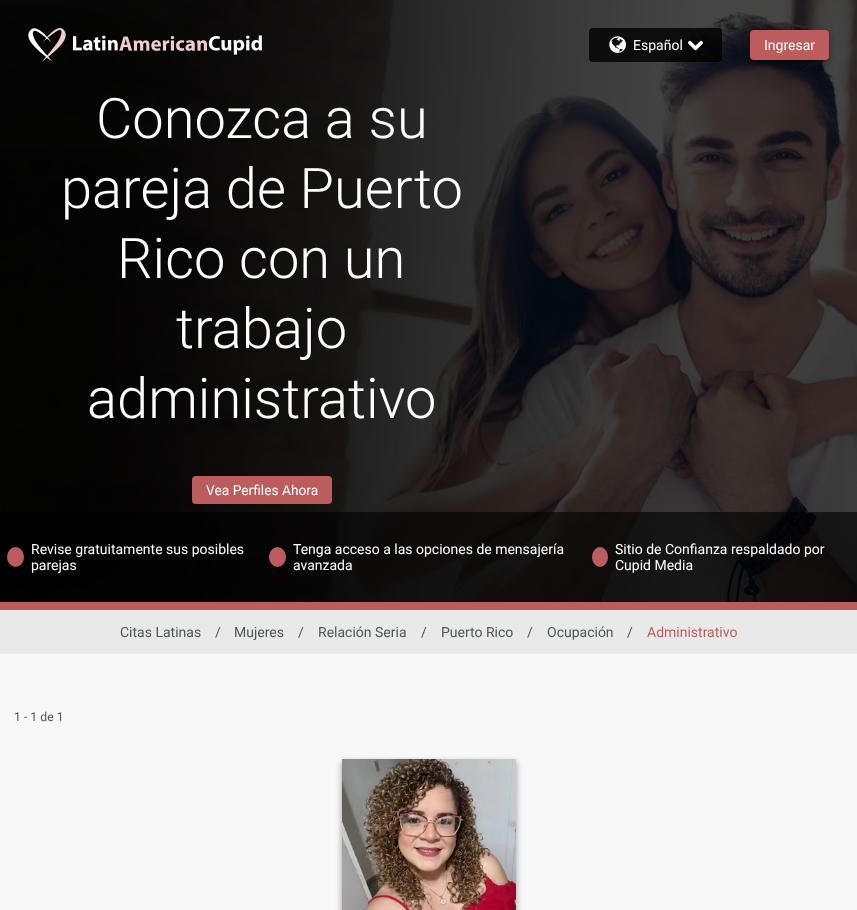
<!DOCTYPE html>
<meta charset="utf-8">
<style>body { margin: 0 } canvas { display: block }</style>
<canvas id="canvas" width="857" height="910"></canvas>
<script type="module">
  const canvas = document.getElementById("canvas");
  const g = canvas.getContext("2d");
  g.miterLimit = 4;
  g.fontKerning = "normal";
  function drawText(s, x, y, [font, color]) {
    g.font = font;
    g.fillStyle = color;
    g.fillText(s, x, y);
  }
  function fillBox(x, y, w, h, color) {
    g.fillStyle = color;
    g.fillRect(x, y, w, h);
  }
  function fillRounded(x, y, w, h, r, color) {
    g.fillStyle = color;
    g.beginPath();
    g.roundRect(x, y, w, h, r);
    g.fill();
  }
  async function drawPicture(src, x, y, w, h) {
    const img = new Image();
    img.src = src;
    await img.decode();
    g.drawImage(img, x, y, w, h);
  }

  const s1 = ["14px Roboto", "#FFFFFF"];
  const s2 = ["300 56px Roboto", "#FFFFFF"];
  const s3 = ["13.75px Roboto", "#FFFFFF"];
  const s4 = ["14px Roboto", "#505656"];
  const s5 = ["14px Roboto", "#BD5C5C"];
  const s6 = ["12.25px Roboto", "#505656"];

  fillBox(0, 0, 857, 910, "#F8F8F8");
  await drawPicture("pic5.png", 0, 0, 857, 602);
  await drawPicture("pic1.png", 28, 28, 38, 34);
  await drawPicture("pic2.png", 73, 35, 189, 20);
  fillRounded(589, 28, 133, 34, 4, "rgba(0, 0, 0, 0.8)");
  await drawPicture("pic3.png", 609, 36, 17, 17);
  drawText("Español", 633, 50, s1);
  await drawPicture("pic4.png", 688, 40, 15, 11);
  g.fillStyle = "rgba(0, 0, 0, 0.4)";
  g.filter = "blur(3px)";
  g.beginPath();
  g.roundRect(750, 33, 79, 30, 4);
  g.fill();
  g.filter = "none";
  fillRounded(750, 30, 79, 30, 4, "#BD5C5C");
  drawText("Ingresar", 764, 50, s1);
  drawText("Conozca a su", 96, 138, s2);
  drawText("pareja de Puerto", 61, 208, s2);
  drawText("Rico con un", 117, 278, s2);
  drawText("trabajo", 176, 348, s2);
  drawText("administrativo", 87, 418, s2);
  fillRounded(192, 476, 140, 28, 4, "#BD5C5C");
  drawText("Vea Perfiles Ahora", 206, 495, s3);
  fillBox(0, 512, 857, 90, "rgba(0, 0, 0, 0.6)");
  g.fillStyle = "#BD5C5C";
  g.beginPath();
  g.ellipse(15.5, 557, 8.5, 10, 0, 0, Math.PI * 2);
  g.fill();
  drawText("Revise gratuitamente sus posibles", 31, 554, s1);
  drawText("parejas", 31, 570, s1);
  g.fillStyle = "#BD5C5C";
  g.beginPath();
  g.ellipse(277.5, 557, 8.5, 10, 0, 0, Math.PI * 2);
  g.fill();
  drawText("Tenga acceso a las opciones de mensajería", 293, 554, s1);
  drawText("avanzada", 293, 570, s1);
  g.fillStyle = "#BD5C5C";
  g.beginPath();
  g.ellipse(600, 557, 8, 10, 0, 0, Math.PI * 2);
  g.fill();
  drawText("Sitio de Confianza respaldado por", 615, 554, s1);
  drawText("Cupid Media", 615, 570, s1);
  fillBox(0, 602, 857, 8, "#BD5C5C");
  fillBox(0, 610, 857, 44, "#E9E9E9");
  drawText("Citas Latinas", 120, 637, s4);
  drawText("/", 215, 637, s4);
  drawText("Mujeres", 234, 637, s4);
  drawText("/", 298, 637, s4);
  drawText("Relación Seria", 318, 637, s4);
  drawText("/", 421, 637, s4);
  drawText("Puerto Rico", 441, 637, s4);
  drawText("/", 527, 637, s4);
  drawText("Ocupación", 547, 637, s4);
  drawText("/", 627, 637, s4);
  drawText("Administrativo", 647, 637, s5);
  drawText("1 - 1 de 1", 14, 721, s6);
  g.fillStyle = "rgba(0, 0, 0, 0.4)";
  g.filter = "blur(3px)";
  g.beginPath();
  g.rect(342, 762, 174, 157);
  g.fill();
  g.filter = "none";
  await drawPicture("pic6.png", 342, 759, 174, 151);
</script>
